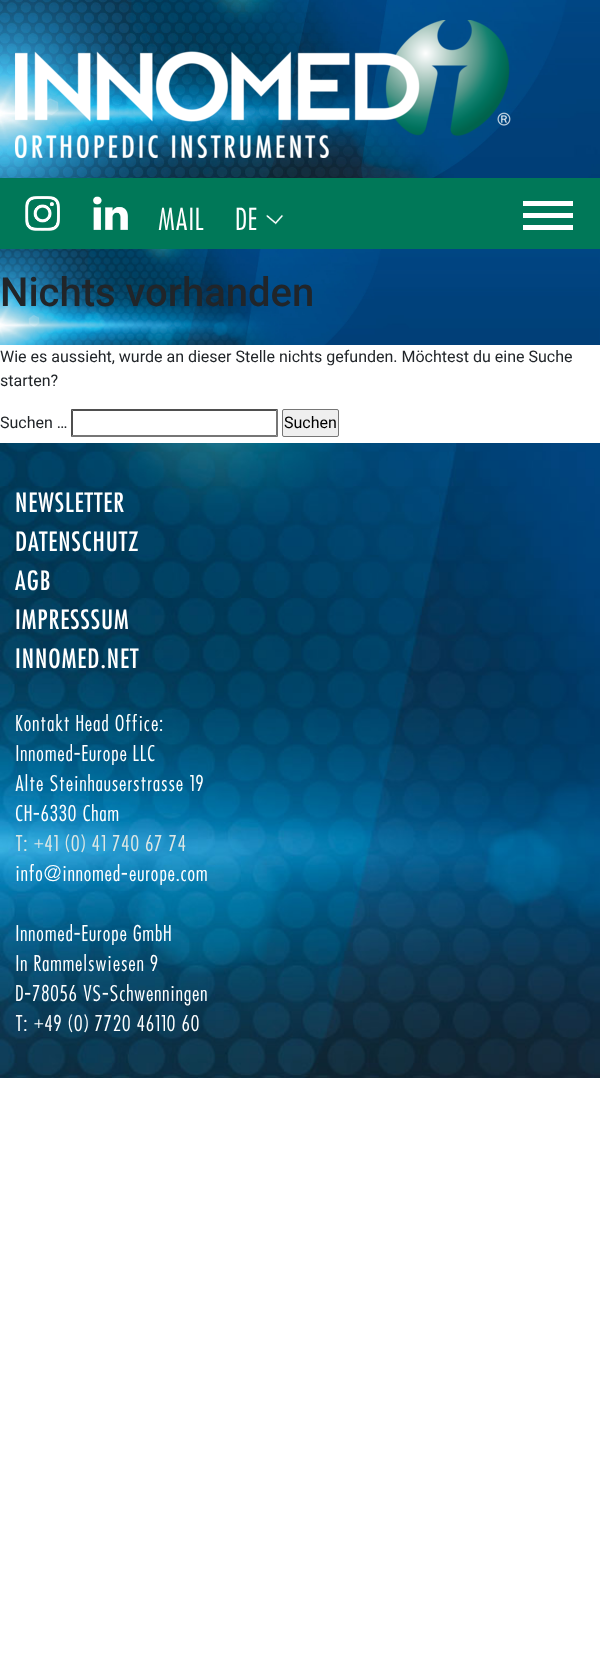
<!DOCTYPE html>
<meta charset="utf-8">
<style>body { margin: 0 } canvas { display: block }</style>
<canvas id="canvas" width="600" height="1653"></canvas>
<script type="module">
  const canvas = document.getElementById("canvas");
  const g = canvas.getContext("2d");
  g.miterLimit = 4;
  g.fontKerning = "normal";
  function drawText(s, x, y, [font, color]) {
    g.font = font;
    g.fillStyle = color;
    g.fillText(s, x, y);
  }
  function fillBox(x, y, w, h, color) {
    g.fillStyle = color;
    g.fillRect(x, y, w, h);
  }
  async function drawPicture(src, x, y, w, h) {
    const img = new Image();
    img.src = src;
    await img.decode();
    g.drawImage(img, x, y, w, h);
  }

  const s1 = ["500 28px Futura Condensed", "#FFFFFF"];
  const s2 = ["500 40px Roboto", "#212529"];
  const s3 = ["16px Roboto", "#212529"];
  const s4 = ["16px Roboto", "#000000"];
  const s5 = ["500 26px Futura", "#FFFFFF"];
  const s6 = ["500 20px Futura Condensed", "#FFFFFF"];
  const s7 = ["500 20px Futura Condensed", "#DDE7E4"];

  fillBox(0, 0, 600, 1653, "#FFFFFF");
  await drawPicture("pic1.png", 0, 0, 600, 178);
  await drawPicture("pic2.png", 15, 20, 496, 138);
  fillBox(0, 178, 600, 71, "#007858");
  await drawPicture("pic3.png", 25, 196, 35, 35);
  await drawPicture("pic4.png", 93, 196, 35, 34);
  g.letterSpacing = "0.5px";
  drawText("MAIL", 158, 230, s1);
  drawText("DE", 235, 230, s1);
  await drawPicture("pic5.png", 266, 214, 18, 11);
  fillBox(523, 213, 50, 5, "#FFFFFF");
  fillBox(523, 201, 50, 5, "#FFFFFF");
  fillBox(523, 225, 50, 5, "#FFFFFF");
  await drawPicture("pic6.png", 0, 249, 600, 96);
  g.letterSpacing = "0px";
  drawText("Nichts vorhanden", 0, 306, s2);
  drawText("Wie es aussieht, wurde an dieser Stelle nichts gefunden. Möchtest du eine Suche", 0, 362, s3);
  drawText("starten?", 0, 386, s3);
  drawText("Suchen …", 0, 428, s3);
  g.fillStyle = "#4F4F4F";
  g.beginPath();
  g.moveTo(71, 409);
  g.lineTo(278, 409);
  g.lineTo(276, 411);
  g.lineTo(73, 411);
  g.closePath();
  g.fill();
  g.fillStyle = "#767676";
  g.beginPath();
  g.moveTo(278, 409);
  g.lineTo(278, 437);
  g.lineTo(276, 435);
  g.lineTo(276, 411);
  g.closePath();
  g.fill();
  g.beginPath();
  g.moveTo(278, 437);
  g.lineTo(71, 437);
  g.lineTo(73, 435);
  g.lineTo(276, 435);
  g.closePath();
  g.fill();
  g.fillStyle = "#4F4F4F";
  g.beginPath();
  g.moveTo(71, 437);
  g.lineTo(71, 409);
  g.lineTo(73, 411);
  g.lineTo(73, 435);
  g.closePath();
  g.fill();
  g.fillStyle = "#EFEFEF";
  g.beginPath();
  g.roundRect(282.5, 409.5, 56, 27, 1.5);
  g.fill();
  g.strokeStyle = "#767676";
  g.stroke();
  drawText("Suchen", 284, 428, s4);
  await drawPicture("pic7.png", 0, 443, 600, 635);
  g.letterSpacing = "1px";
  drawText("NEWSLETTER", 15, 512, s5);
  drawText("DATENSCHUTZ", 15, 551, s5);
  drawText("AGB", 15, 590, s5);
  drawText("IMPRESSSUM", 15, 629, s5);
  drawText("INNOMED.NET", 15, 668, s5);
  g.letterSpacing = "0.5px";
  drawText("Kontakt Head Office:", 15, 731, s6);
  drawText("Innomed-Europe LLC", 15, 761, s6);
  drawText("Alte Steinhauserstrasse 19", 15, 791, s6);
  drawText("CH-6330 Cham", 15, 821, s6);
  drawText("T: +41 (0) 41 740 67 74", 15, 851, s7);
  drawText("info@innomed-europe.com", 15, 881, s6);
  drawText("Innomed-Europe GmbH", 15, 941, s6);
  drawText("In Rammelswiesen 9", 15, 971, s6);
  drawText("D-78056 VS-Schwenningen", 15, 1001, s6);
  drawText("T: +49 (0) 7720 46110 60", 15, 1031, s6);
</script>
